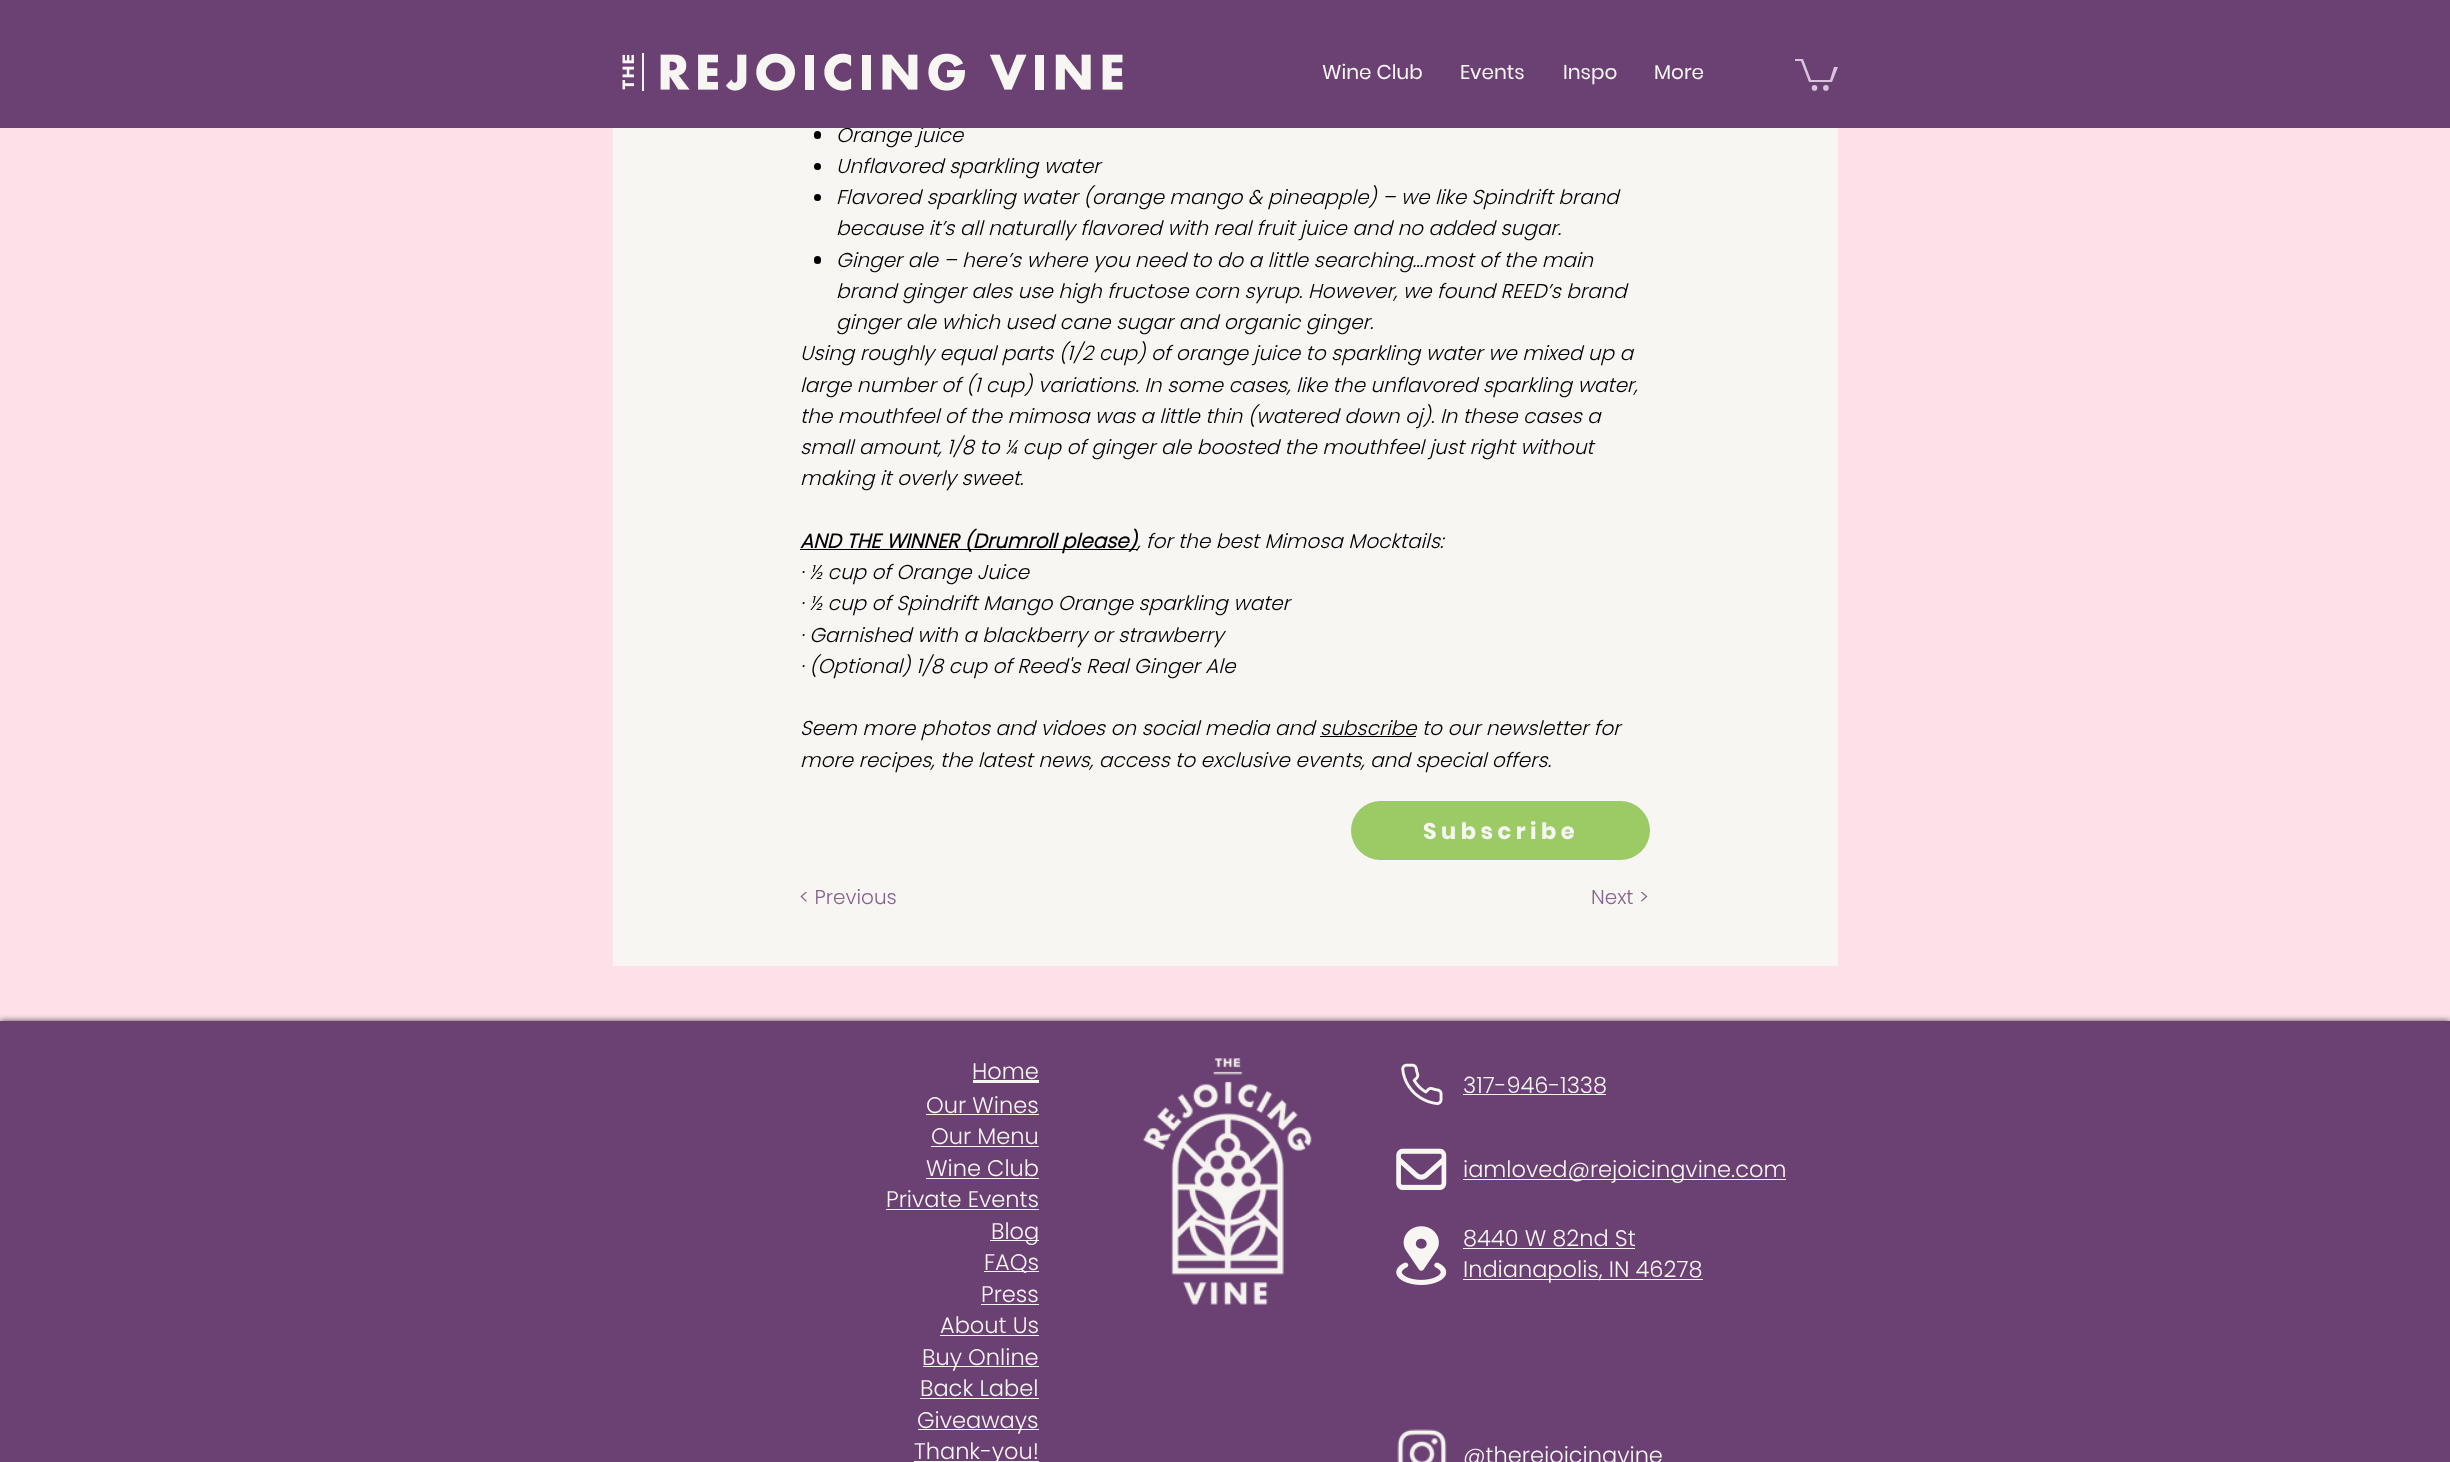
<!DOCTYPE html>
<meta charset="utf-8">
<style>body { margin: 0 } canvas { display: block }</style>
<canvas id="canvas" width="2450" height="1462"></canvas>
<script type="module">
  const canvas = document.getElementById("canvas");
  const g = canvas.getContext("2d");
  g.miterLimit = 4;
  g.fontKerning = "normal";
  function drawText(s, x, y, [font, color]) {
    g.font = font;
    g.fillStyle = color;
    g.fillText(s, x, y);
  }
  function fillBox(x, y, w, h, color) {
    g.fillStyle = color;
    g.fillRect(x, y, w, h);
  }
  function fillRounded(x, y, w, h, r, color) {
    g.fillStyle = color;
    g.beginPath();
    g.roundRect(x, y, w, h, r);
    g.fill();
  }
  async function drawPicture(src, x, y, w, h) {
    const img = new Image();
    img.src = src;
    await img.decode();
    g.drawImage(img, x, y, w, h);
  }

  const s1 = ["italic 300 20px Poppins", "#000000"];
  const s2 = ["20px Poppins", "#F7F6F2"];
  const s3 = ["italic bold 20px Poppins", "#000000"];
  const s4 = ["bold 22.5px Poppins", "#F7F6F2"];
  const s5 = ["300 20px Poppins", "#86628E"];
  const s6 = ["300 22.5px Poppins", "#F7F6F2"];

  fillBox(0, 0, 2450, 1462, "#FDE1E8");
  fillBox(613, 128, 1225, 838, "#F7F6F2");
  drawText("Orange juice", 836, 142, s1);
  fillBox(0, 0, 2450, 128, "#6B4174");
  await drawPicture("pic1.png", 622, 53, 501, 38);
  drawText("Wine Club", 1322, 79, s2);
  drawText("Events", 1460, 79, s2);
  drawText("Inspo", 1563, 79, s2);
  drawText("More", 1654, 79, s2);
  g.fillStyle = "#D8C4DC";
  g.beginPath();
  g.moveTo(1838, 67);
  g.lineTo(1832, 82);
  g.lineTo(1809, 82);
  g.lineTo(1801, 61);
  g.lineTo(1795, 61);
  g.lineTo(1795, 59);
  g.lineTo(1803, 59);
  g.lineTo(1811, 80);
  g.lineTo(1830, 80);
  g.lineTo(1834, 67);
  g.fill();
  g.beginPath();
  g.arc(1825.9, 87.9, 2.8, 0, Math.PI * 2);
  g.fill();
  g.beginPath();
  g.arc(1814.5, 87.9, 2.8, 0, Math.PI * 2);
  g.fill();
  fillRounded(814, 131, 7, 8, 3.5, "#000000");
  g.beginPath();
  g.arc(817.5, 166.5, 3.5, 0, Math.PI * 2);
  g.fill();
  drawText("Unflavored sparkling water", 836, 173, s1);
  g.beginPath();
  g.arc(817.5, 197.5, 3.5, 0, Math.PI * 2);
  g.fill();
  drawText("Flavored sparkling water (orange mango & pineapple) – we like Spindrift brand", 836, 204, s1);
  drawText("because it’s all naturally flavored with real fruit juice and no added sugar.", 836, 235, s1);
  fillRounded(814, 256, 7, 8, 3.5, "#000000");
  drawText("Ginger ale – here’s where you need to do a little searching…most of the main", 836, 267, s1);
  drawText("brand ginger ales use high fructose corn syrup. However, we found REED’s brand", 836, 298, s1);
  drawText("ginger ale which used cane sugar and organic ginger.", 836, 329, s1);
  drawText("Using roughly equal parts (1/2 cup) of orange juice to sparkling water we mixed up a", 800, 360, s1);
  drawText("large number of (1 cup) variations. In some cases, like the unflavored sparkling water,", 800, 392, s1);
  drawText("the mouthfeel of the mimosa was a little thin (watered down oj). In these cases a", 800, 423, s1);
  drawText("small amount, 1/8 to ¼ cup of ginger ale boosted the mouthfeel just right without", 800, 454, s1);
  drawText("making it overly sweet.", 800, 485, s1);
  fillBox(800, 549, 338, 1, "#000000");
  drawText("AND THE WINNER (Drumroll please)", 800, 548, s3);
  drawText(", for the best Mimosa Mocktails:", 1137, 548, s1);
  drawText("· ½ cup of Orange Juice", 800, 579, s1);
  drawText("· ½ cup of Spindrift Mango Orange sparkling water", 800, 610, s1);
  drawText("· Garnished with a blackberry or strawberry", 800, 642, s1);
  drawText("· (Optional) 1/8 cup of Reed's Real Ginger Ale", 800, 673, s1);
  drawText("Seem more photos and vidoes on social media and subscribe to our newsletter for", 800, 735, s1);
  fillBox(1320, 736, 96, 1, "#000000");
  drawText("more recipes, the latest news, access to exclusive events, and special offers.", 800, 767, s1);
  fillRounded(1351, 801, 299, 59, 29.5, "#9CCB65");
  g.letterSpacing = "4.5px";
  drawText("Subscribe", 1423, 839, s4);
  g.letterSpacing = "0px";
  drawText("< Previous", 799, 904, s5);
  drawText("Next >", 1591, 904, s5);
  g.fillStyle = "rgba(0, 0, 0, 0.7)";
  g.filter = "blur(3px)";
  g.beginPath();
  g.rect(0, 1021, 2450, 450);
  g.fill();
  g.filter = "none";
  fillBox(0, 1021, 2450, 441, "#6B4174");
  drawText("Home", 972, 1079, s6);
  fillBox(973, 1080, 66, 3, "#F7F6F2");
  drawText("Our Wines", 926, 1113, s6);
  fillBox(926, 1114, 113, 1, "#F7F6F2");
  drawText("Our Menu", 931, 1144, s6);
  fillBox(931, 1146, 108, 1, "#F7F6F2");
  drawText("Wine Club", 926, 1176, s6);
  fillBox(926, 1178, 113, 1, "#F7F6F2");
  drawText("Private Events", 886, 1207, s6);
  fillBox(886, 1209, 153, 1, "#F7F6F2");
  fillBox(990, 1240, 49, 1, "#F7F6F2");
  drawText("Blog", 991, 1239, s6);
  fillBox(984, 1271, 55, 1, "#F7F6F2");
  drawText("FAQs", 984, 1270, s6);
  drawText("Press", 981, 1302, s6);
  fillBox(981, 1304, 58, 1, "#F7F6F2");
  drawText("About Us", 940, 1333, s6);
  fillBox(940, 1335, 99, 1, "#F7F6F2");
  fillBox(923, 1366, 116, 1, "#F7F6F2");
  drawText("Buy Online", 922, 1365, s6);
  drawText("Back Label", 920, 1396, s6);
  fillBox(920, 1398, 119, 1, "#F7F6F2");
  fillBox(918, 1429, 121, 1, "#F7F6F2");
  drawText("Giveaways", 917, 1428, s6);
  fillBox(914, 1461, 125, 1, "#F7F6F2");
  drawText("Thank-you!", 914, 1459, s6);
  await drawPicture("pic2.png", 1143, 1058, 169, 247);
  await drawPicture("pic3.png", 1401, 1063, 42, 42);
  drawText("317-946-1338", 1463, 1093, s6);
  fillBox(1463, 1094, 143, 1, "#F7F6F2");
  await drawPicture("pic4.png", 1396, 1148, 51, 42);
  fillBox(1463, 1179, 323, 1, "#F7F6F2");
  drawText("iamloved@rejoicingvine.com", 1463, 1177, s6);
  await drawPicture("pic5.png", 1396, 1226, 51, 59);
  drawText("8440 W 82nd St", 1463, 1246, s6);
  fillBox(1463, 1248, 172, 1, "#F7F6F2");
  fillBox(1463, 1279, 240, 1, "#F7F6F2");
  drawText("Indianapolis, IN 46278", 1463, 1277, s6);
  await drawPicture("pic6.png", 1397, 1429, 50, 33);
  drawText("@therejoicingvine", 1463, 1463, s6);
</script>
